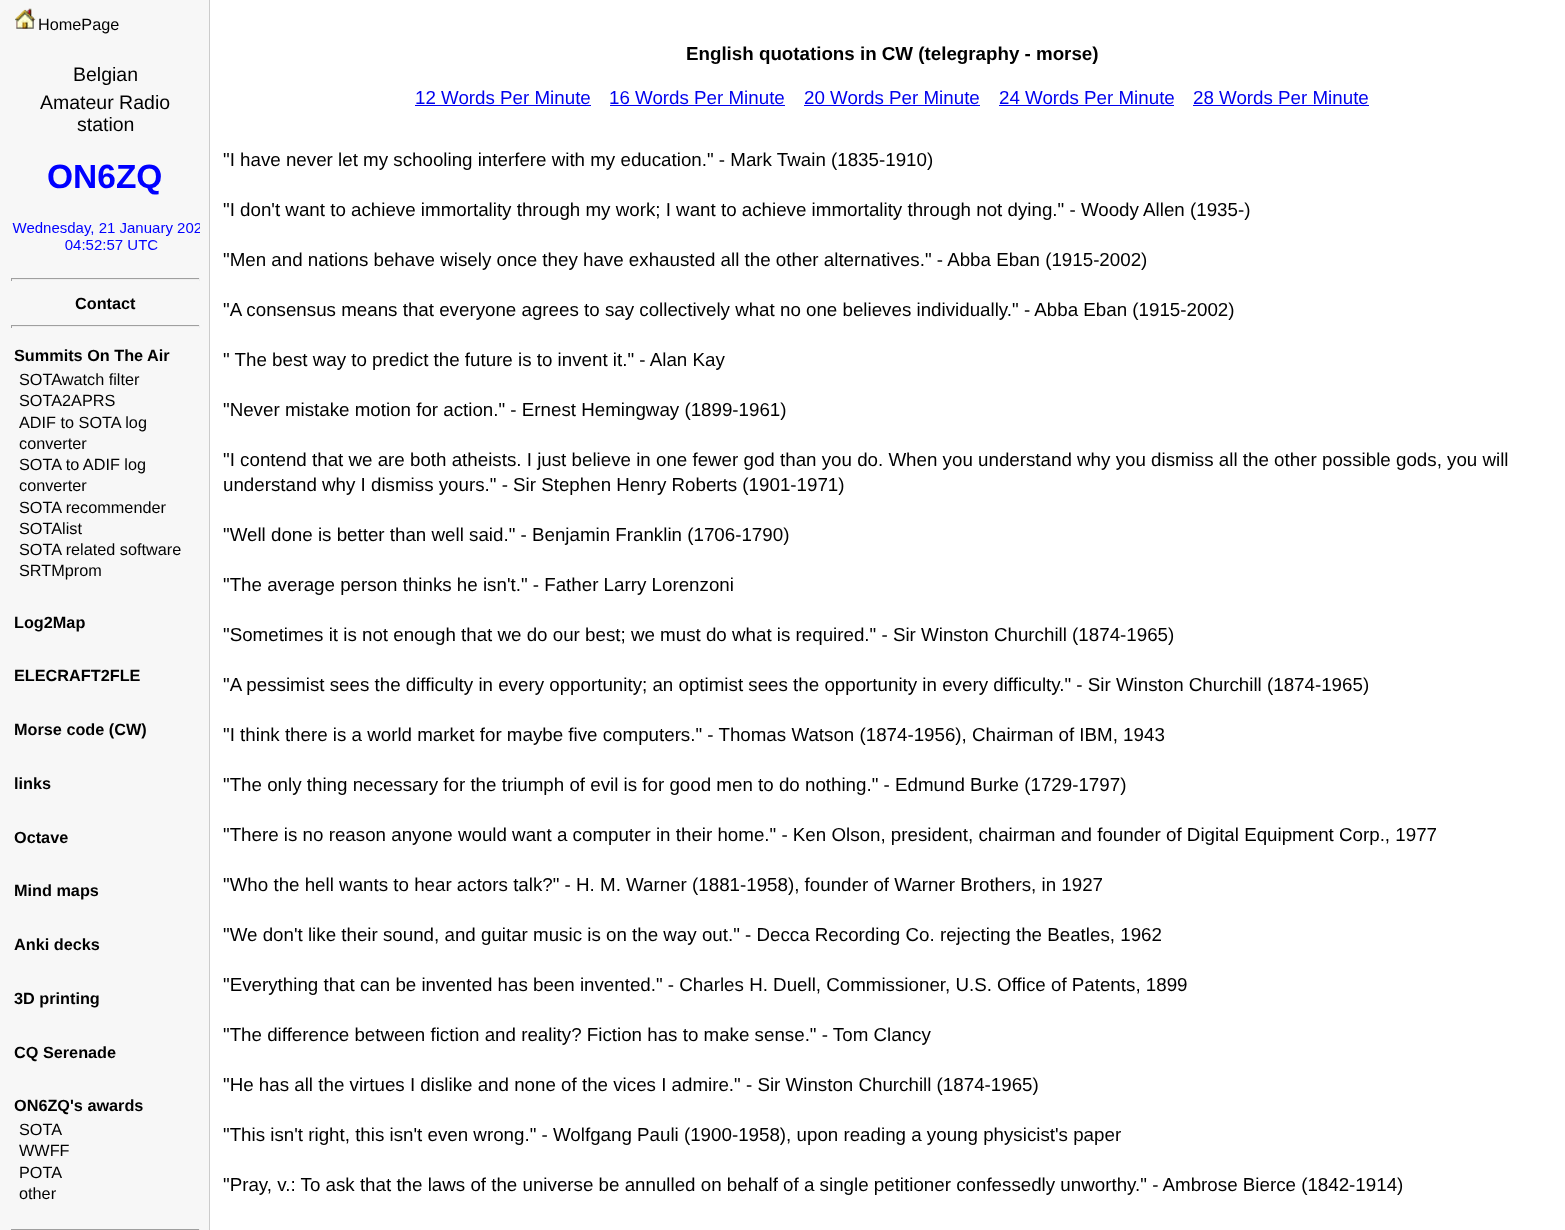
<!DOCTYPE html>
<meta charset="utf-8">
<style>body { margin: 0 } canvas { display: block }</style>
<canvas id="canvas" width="1565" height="1230"></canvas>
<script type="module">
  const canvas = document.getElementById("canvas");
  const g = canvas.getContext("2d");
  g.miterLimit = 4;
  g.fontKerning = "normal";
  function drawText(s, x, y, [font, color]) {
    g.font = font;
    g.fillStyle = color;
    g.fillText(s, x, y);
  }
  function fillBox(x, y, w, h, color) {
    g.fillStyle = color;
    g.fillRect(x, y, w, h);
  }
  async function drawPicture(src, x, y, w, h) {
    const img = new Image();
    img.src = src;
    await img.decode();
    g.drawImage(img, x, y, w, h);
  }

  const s1 = ["16.25px Liberation Sans", "#000000"];
  const s2 = ["19.5px Liberation Sans", "#000000"];
  const s3 = ["bold 33.5px Liberation Sans", "#0000FF"];
  const s4 = ["bold 16.25px Liberation Sans", "#000000"];
  const s5 = ["bold 18.75px Liberation Sans", "#000000"];
  const s6 = ["18.75px Liberation Sans", "#0000EE"];
  const s7 = ["18.75px Liberation Sans", "#000000"];

  fillBox(0, 0, 1565, 1230, "#F7F7F7");
  fillBox(209, 0, 1, 1230, "#CCCCCC");
  await drawPicture("pic1.png", 15, 8, 21, 21);
  drawText("HomePage", 38, 30, s1);
  drawText("Belgian", 73, 81, s2);
  drawText("Amateur Radio", 40, 109, s2);
  drawText("station", 77, 131, s2);
  drawText("ON6ZQ", 47, 188, s3);
  await drawPicture("pic2.png", 12, 222, 188, 28);
  fillBox(11, 278, 189, 1, "#9F9F9F");
  fillBox(199, 278, 1, 3, "#EEEEEE");
  fillBox(11, 279, 189, 1, "#EEEEEE");
  fillBox(11, 278, 1, 3, "#9F9F9F");
  drawText("Contact", 75, 309, s4);
  fillBox(11, 325, 189, 1, "#9F9F9F");
  fillBox(199, 325, 1, 3, "#EEEEEE");
  fillBox(11, 326, 189, 1, "#EEEEEE");
  fillBox(11, 325, 1, 3, "#9F9F9F");
  drawText("Summits On The Air", 14, 361, s4);
  drawText("SOTAwatch filter", 19, 385, s1);
  drawText("SOTA2APRS", 19, 406, s1);
  drawText("ADIF to SOTA log", 19, 428, s1);
  drawText("converter", 19, 449, s1);
  drawText("SOTA to ADIF log", 19, 470, s1);
  drawText("converter", 19, 491, s1);
  drawText("SOTA recommender", 19, 513, s1);
  drawText("SOTAlist", 19, 534, s1);
  drawText("SOTA related software", 19, 555, s1);
  drawText("SRTMprom", 19, 576, s1);
  drawText("Log2Map", 14, 628, s4);
  drawText("ELECRAFT2FLE", 14, 681, s4);
  drawText("Morse code (CW)", 14, 735, s4);
  drawText("links", 14, 789, s4);
  drawText("Octave", 14, 843, s4);
  drawText("Mind maps", 14, 896, s4);
  drawText("Anki decks", 14, 950, s4);
  drawText("3D printing", 14, 1004, s4);
  drawText("CQ Serenade", 14, 1058, s4);
  drawText("ON6ZQ's awards", 14, 1111, s4);
  drawText("SOTA", 19, 1135, s1);
  drawText("WWFF", 19, 1156, s1);
  drawText("POTA", 19, 1178, s1);
  drawText("other", 19, 1199, s1);
  fillBox(11, 1229, 189, 1, "#9F9F9F");
  fillBox(199, 1229, 1, 1, "#EEEEEE");
  fillBox(210, 0, 1355, 1230, "#FFFFFF");
  drawText("English quotations in CW (telegraphy - morse)", 686, 60, s5);
  drawText("12 Words Per Minute", 415, 104, s6);
  fillBox(415, 105, 176, 1, "#0000EE");
  drawText("16 Words Per Minute", 609, 104, s6);
  fillBox(610, 105, 175, 1, "#0000EE");
  drawText("20 Words Per Minute", 804, 104, s6);
  fillBox(804, 105, 176, 1, "#0000EE");
  drawText("24 Words Per Minute", 999, 104, s6);
  fillBox(999, 105, 175, 1, "#0000EE");
  drawText("28 Words Per Minute", 1193, 104, s6);
  fillBox(1193, 105, 176, 1, "#0000EE");
  drawText("\"I have never let my schooling interfere with my education.\" - Mark Twain (1835-1910)", 223, 166, s7);
  drawText("\"I don't want to achieve immortality through my work; I want to achieve immortality through not dying.\" - Woody Allen (1935-)", 223, 216, s7);
  drawText("\"Men and nations behave wisely once they have exhausted all the other alternatives.\" - Abba Eban (1915-2002)", 223, 266, s7);
  drawText("\"A consensus means that everyone agrees to say collectively what no one believes individually.\" - Abba Eban (1915-2002)", 223, 316, s7);
  drawText("\" The best way to predict the future is to invent it.\" - Alan Kay", 223, 366, s7);
  drawText("\"Never mistake motion for action.\" - Ernest Hemingway (1899-1961)", 223, 416, s7);
  drawText("\"I contend that we are both atheists. I just believe in one fewer god than you do. When you understand why you dismiss all the other possible gods, you will", 223, 466, s7);
  drawText("understand why I dismiss yours.\" - Sir Stephen Henry Roberts (1901-1971)", 223, 491, s7);
  drawText("\"Well done is better than well said.\" - Benjamin Franklin (1706-1790)", 223, 541, s7);
  drawText("\"The average person thinks he isn't.\" - Father Larry Lorenzoni", 223, 591, s7);
  drawText("\"Sometimes it is not enough that we do our best; we must do what is required.\" - Sir Winston Churchill (1874-1965)", 223, 641, s7);
  drawText("\"A pessimist sees the difficulty in every opportunity; an optimist sees the opportunity in every difficulty.\" - Sir Winston Churchill (1874-1965)", 223, 691, s7);
  drawText("\"I think there is a world market for maybe five computers.\" - Thomas Watson (1874-1956), Chairman of IBM, 1943", 223, 741, s7);
  drawText("\"The only thing necessary for the triumph of evil is for good men to do nothing.\" - Edmund Burke (1729-1797)", 223, 791, s7);
  drawText("\"There is no reason anyone would want a computer in their home.\" - Ken Olson, president, chairman and founder of Digital Equipment Corp., 1977", 223, 841, s7);
  drawText("\"Who the hell wants to hear actors talk?\" - H. M. Warner (1881-1958), founder of Warner Brothers, in 1927", 223, 891, s7);
  drawText("\"We don't like their sound, and guitar music is on the way out.\" - Decca Recording Co. rejecting the Beatles, 1962", 223, 941, s7);
  drawText("\"Everything that can be invented has been invented.\" - Charles H. Duell, Commissioner, U.S. Office of Patents, 1899", 223, 991, s7);
  drawText("\"The difference between fiction and reality? Fiction has to make sense.\" - Tom Clancy", 223, 1041, s7);
  drawText("\"He has all the virtues I dislike and none of the vices I admire.\" - Sir Winston Churchill (1874-1965)", 223, 1091, s7);
  drawText("\"This isn't right, this isn't even wrong.\" - Wolfgang Pauli (1900-1958), upon reading a young physicist's paper", 223, 1141, s7);
  drawText("\"Pray, v.: To ask that the laws of the universe be annulled on behalf of a single petitioner confessedly unworthy.\" - Ambrose Bierce (1842-1914)", 223, 1191, s7);
</script>
